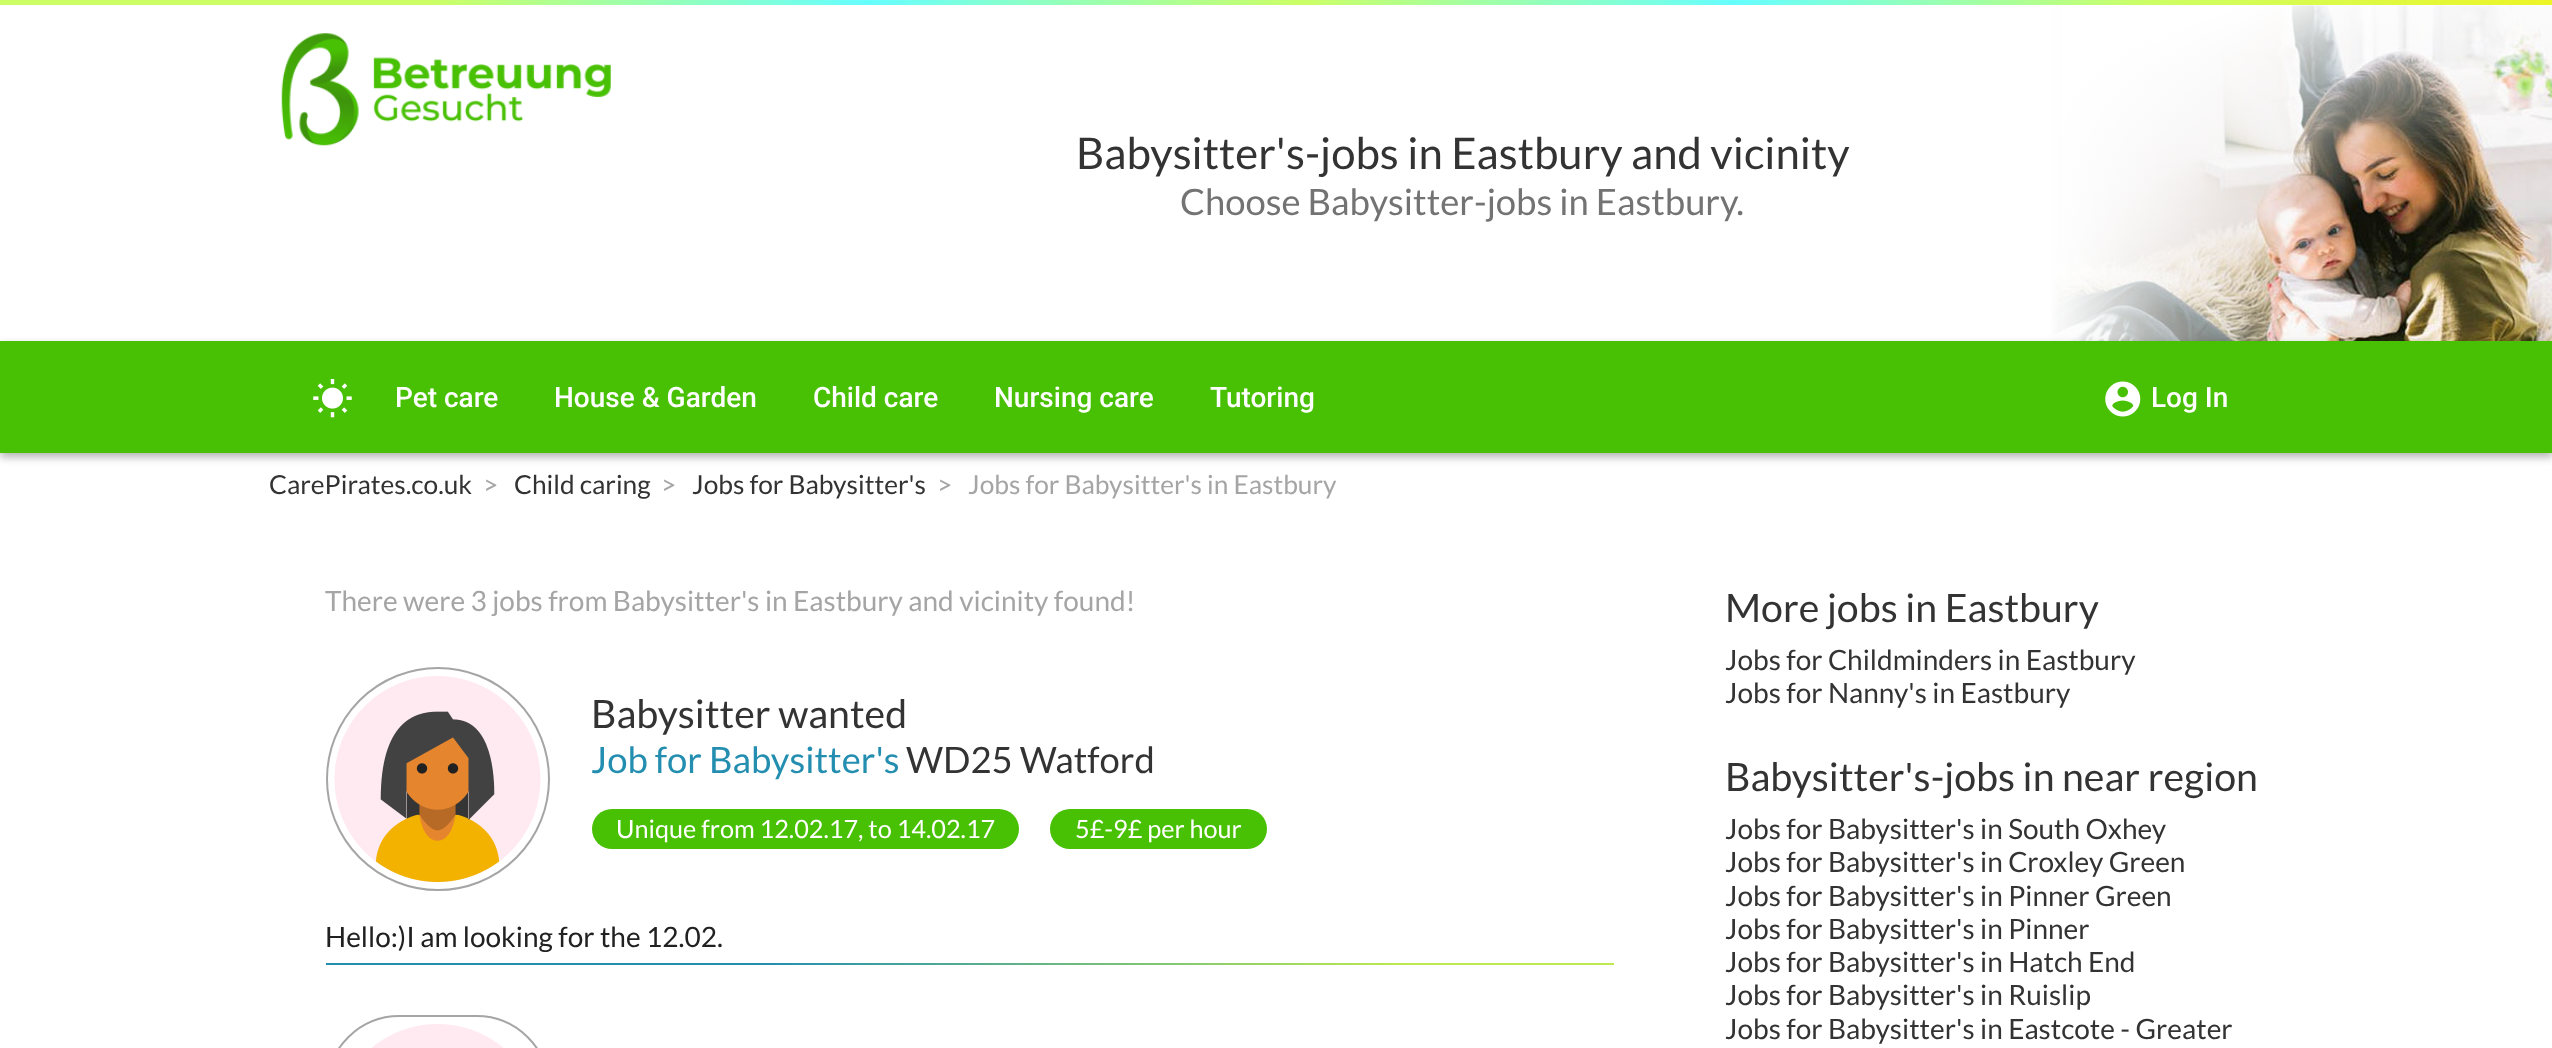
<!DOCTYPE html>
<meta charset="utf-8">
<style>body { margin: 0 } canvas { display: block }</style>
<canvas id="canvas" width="2552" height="1048"></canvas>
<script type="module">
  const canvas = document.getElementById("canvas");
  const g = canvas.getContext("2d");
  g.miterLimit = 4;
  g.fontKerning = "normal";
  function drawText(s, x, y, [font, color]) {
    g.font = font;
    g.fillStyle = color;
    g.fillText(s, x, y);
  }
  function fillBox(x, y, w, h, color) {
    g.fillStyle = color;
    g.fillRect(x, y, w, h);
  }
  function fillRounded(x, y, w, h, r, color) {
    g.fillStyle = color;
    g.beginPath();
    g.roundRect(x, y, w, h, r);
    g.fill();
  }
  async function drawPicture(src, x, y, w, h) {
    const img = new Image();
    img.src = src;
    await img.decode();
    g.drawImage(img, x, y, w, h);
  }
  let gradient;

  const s1 = ["43.7px Lato", "#333333"];
  const s2 = ["36.4px Lato", "#737373"];
  const s3 = ["500 28px Roboto", "#FFFFFF"];
  const s4 = ["26.25px Lato", "#333333"];
  const s5 = ["26.25px Lato", "#A5A5A5"];
  const s6 = ["28px Lato", "#A5A5A5"];
  const s7 = ["39.25px Lato", "#333333"];
  const s8 = ["36.4px Lato", "#248EB1"];
  const s9 = ["36.4px Lato", "#333333"];
  const s10 = ["25.25px Lato", "#FFFFFF"];
  const s11 = ["28px Lato", "#212121"];
  const s12 = ["28px Lato", "#333333"];

  fillBox(0, 0, 2552, 1048, "#FFFFFF");
  gradient = g.createLinearGradient(0, 2.6, 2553, 2.6);
  gradient.addColorStop(0.17, "#CCFF66");
  gradient.addColorStop(0.34, "#66FFFF");
  gradient.addColorStop(0.51, "#CCFF66");
  gradient.addColorStop(0.68, "#66FFFF");
  gradient.addColorStop(0.84, "#CCFF66");
  gradient.addColorStop(1, "#EDF526");
  g.fillStyle = gradient;
  g.fillRect(0, 0, 2552, 5);
  await drawPicture("pic1.png", 281, 33, 330, 113);
  drawText("Babysitter's-jobs in Eastbury and vicinity", 1076, 169, s1);
  drawText("Choose Babysitter-jobs in Eastbury.", 1180, 215, s2);
  await drawPicture("pic2.png", 2051, 5, 501, 336);
  gradient = g.createLinearGradient(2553, 173, 2049, 173);
  gradient.addColorStop(0.4, "rgba(255, 255, 255, 0)");
  gradient.addColorStop(1, "#FFFFFF");
  g.fillStyle = gradient;
  g.fillRect(2051, 5, 294, 336);
  gradient = g.createRadialGradient(3561, 1523.84, 0, 3561, 1523.84, 2138);
  gradient.addColorStop(0.73, "rgba(255, 255, 255, 0)");
  gradient.addColorStop(0.94, "#FFFFFF");
  g.fillStyle = gradient;
  g.beginPath();
  g.rect(2061, 5, 491, 336);
  g.save();
  g.clip();
  g.scale(1, 832 / 2138);
  g.fillRect(0, 0, 2552, 2694);
  g.restore();
  g.fillStyle = "rgba(0, 0, 0, 0.3)";
  g.filter = "blur(4.5px)";
  g.beginPath();
  g.rect(0, 345, 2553, 112);
  g.fill();
  g.filter = "none";
  fillBox(0, 341, 2552, 112, "#48C003");
  await drawPicture("pic3.png", 313, 379, 39, 39);
  drawText("Pet care", 395, 407, s3);
  drawText("House & Garden", 554, 407, s3);
  drawText("Child care", 813, 407, s3);
  drawText("Nursing care", 994, 407, s3);
  drawText("Tutoring", 1210, 407, s3);
  await drawPicture("pic4.png", 2105, 381, 36, 36);
  drawText("Log In", 2151, 407, s3);
  drawText("CarePirates.co.uk", 269, 494, s4);
  drawText(">", 483, 494, s5);
  drawText("Child caring", 514, 494, s4);
  drawText(">", 661, 494, s5);
  drawText("Jobs for Babysitter's", 692, 494, s4);
  drawText(">", 937, 494, s5);
  drawText("Jobs for Babysitter's in Eastbury", 968, 494, s5);
  drawText("There were 3 jobs from Babysitter's in Eastbury and vicinity found!", 325, 611, s6);
  g.beginPath();
  g.arc(438, 779, 111, 0, Math.PI * 2);
  g.strokeStyle = "#A5A5A5";
  g.lineWidth = 2;
  g.stroke();
  await drawPicture("pic5.png", 334, 676, 207, 206);
  drawText("Babysitter wanted", 591, 728, s7);
  drawText("Job for Babysitter's", 591, 773, s8);
  drawText("WD25 Watford", 906, 773, s9);
  fillRounded(592, 809, 427, 40, 20, "#48C003");
  drawText("Unique from 12.02.17, to 14.02.17", 616, 838, s10);
  fillRounded(1050, 809, 217, 40, 20, "#48C003");
  drawText("5£-9£ per hour", 1075, 838, s10);
  drawText("Hello:)I am looking for the 12.02.", 325, 947, s11);
  gradient = g.createLinearGradient(326, 963, 1614, 963);
  gradient.addColorStop(0.34, "#248EB1");
  gradient.addColorStop(0.84, "#BDEA4D");
  g.fillStyle = gradient;
  g.fillRect(326, 963, 1288, 2);
  g.beginPath();
  g.roundRect(327, 1016, 222, 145, 111);
  g.stroke();
  await drawPicture("pic6.png", 372, 1024, 131, 24);
  drawText("More jobs in Eastbury", 1725, 622, s7);
  drawText("Jobs for Childminders in Eastbury", 1725, 670, s12);
  drawText("Jobs for Nanny's in Eastbury", 1725, 703, s12);
  drawText("Babysitter's-jobs in near region", 1725, 791, s7);
  drawText("Jobs for Babysitter's in South Oxhey", 1725, 839, s12);
  drawText("Jobs for Babysitter's in Croxley Green", 1725, 872, s12);
  drawText("Jobs for Babysitter's in Pinner Green", 1725, 906, s12);
  drawText("Jobs for Babysitter's in Pinner", 1725, 939, s12);
  drawText("Jobs for Babysitter's in Hatch End", 1725, 972, s12);
  drawText("Jobs for Babysitter's in Ruislip", 1725, 1005, s12);
  drawText("Jobs for Babysitter's in Eastcote - Greater", 1725, 1039, s12);
</script>
